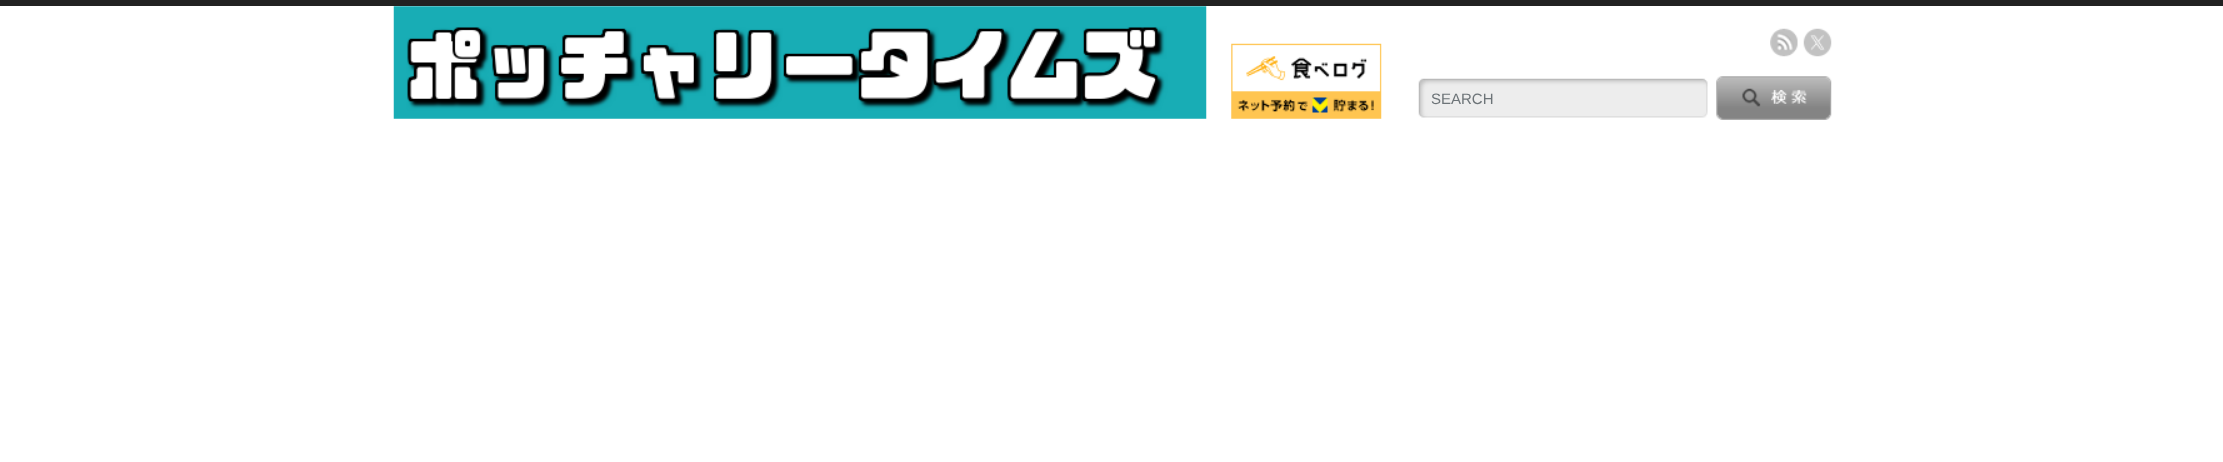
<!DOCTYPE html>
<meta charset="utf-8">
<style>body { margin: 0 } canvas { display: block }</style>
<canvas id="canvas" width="2223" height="462"></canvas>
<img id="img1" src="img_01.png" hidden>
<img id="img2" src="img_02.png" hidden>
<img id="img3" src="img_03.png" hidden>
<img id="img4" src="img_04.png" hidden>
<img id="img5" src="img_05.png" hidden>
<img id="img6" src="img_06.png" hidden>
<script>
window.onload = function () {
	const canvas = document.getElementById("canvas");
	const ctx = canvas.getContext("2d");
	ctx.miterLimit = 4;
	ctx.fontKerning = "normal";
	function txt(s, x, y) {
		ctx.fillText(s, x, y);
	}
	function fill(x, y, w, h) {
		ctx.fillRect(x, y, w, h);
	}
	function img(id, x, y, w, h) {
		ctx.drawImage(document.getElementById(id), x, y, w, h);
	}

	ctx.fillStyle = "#FFFFFF";
	fill(0, 0, 2223, 462);
	ctx.fillStyle = "#222222";
	fill(0, 0, 2223, 6);
	img("img1", 393, 6, 814, 113);
	img("img2", 1231, 43, 151, 76);
	img("img3", 1418, 78, 290, 40);
	img("img4", 1716, 76, 116, 44);
	img("img5", 1770, 28, 28, 29);
	img("img6", 1803, 28, 29, 29);
	ctx.font = "15px Liberation Sans";
	ctx.fillStyle = "#6D7478";
	txt("SEARCH", 1431, 104);
};
</script>
